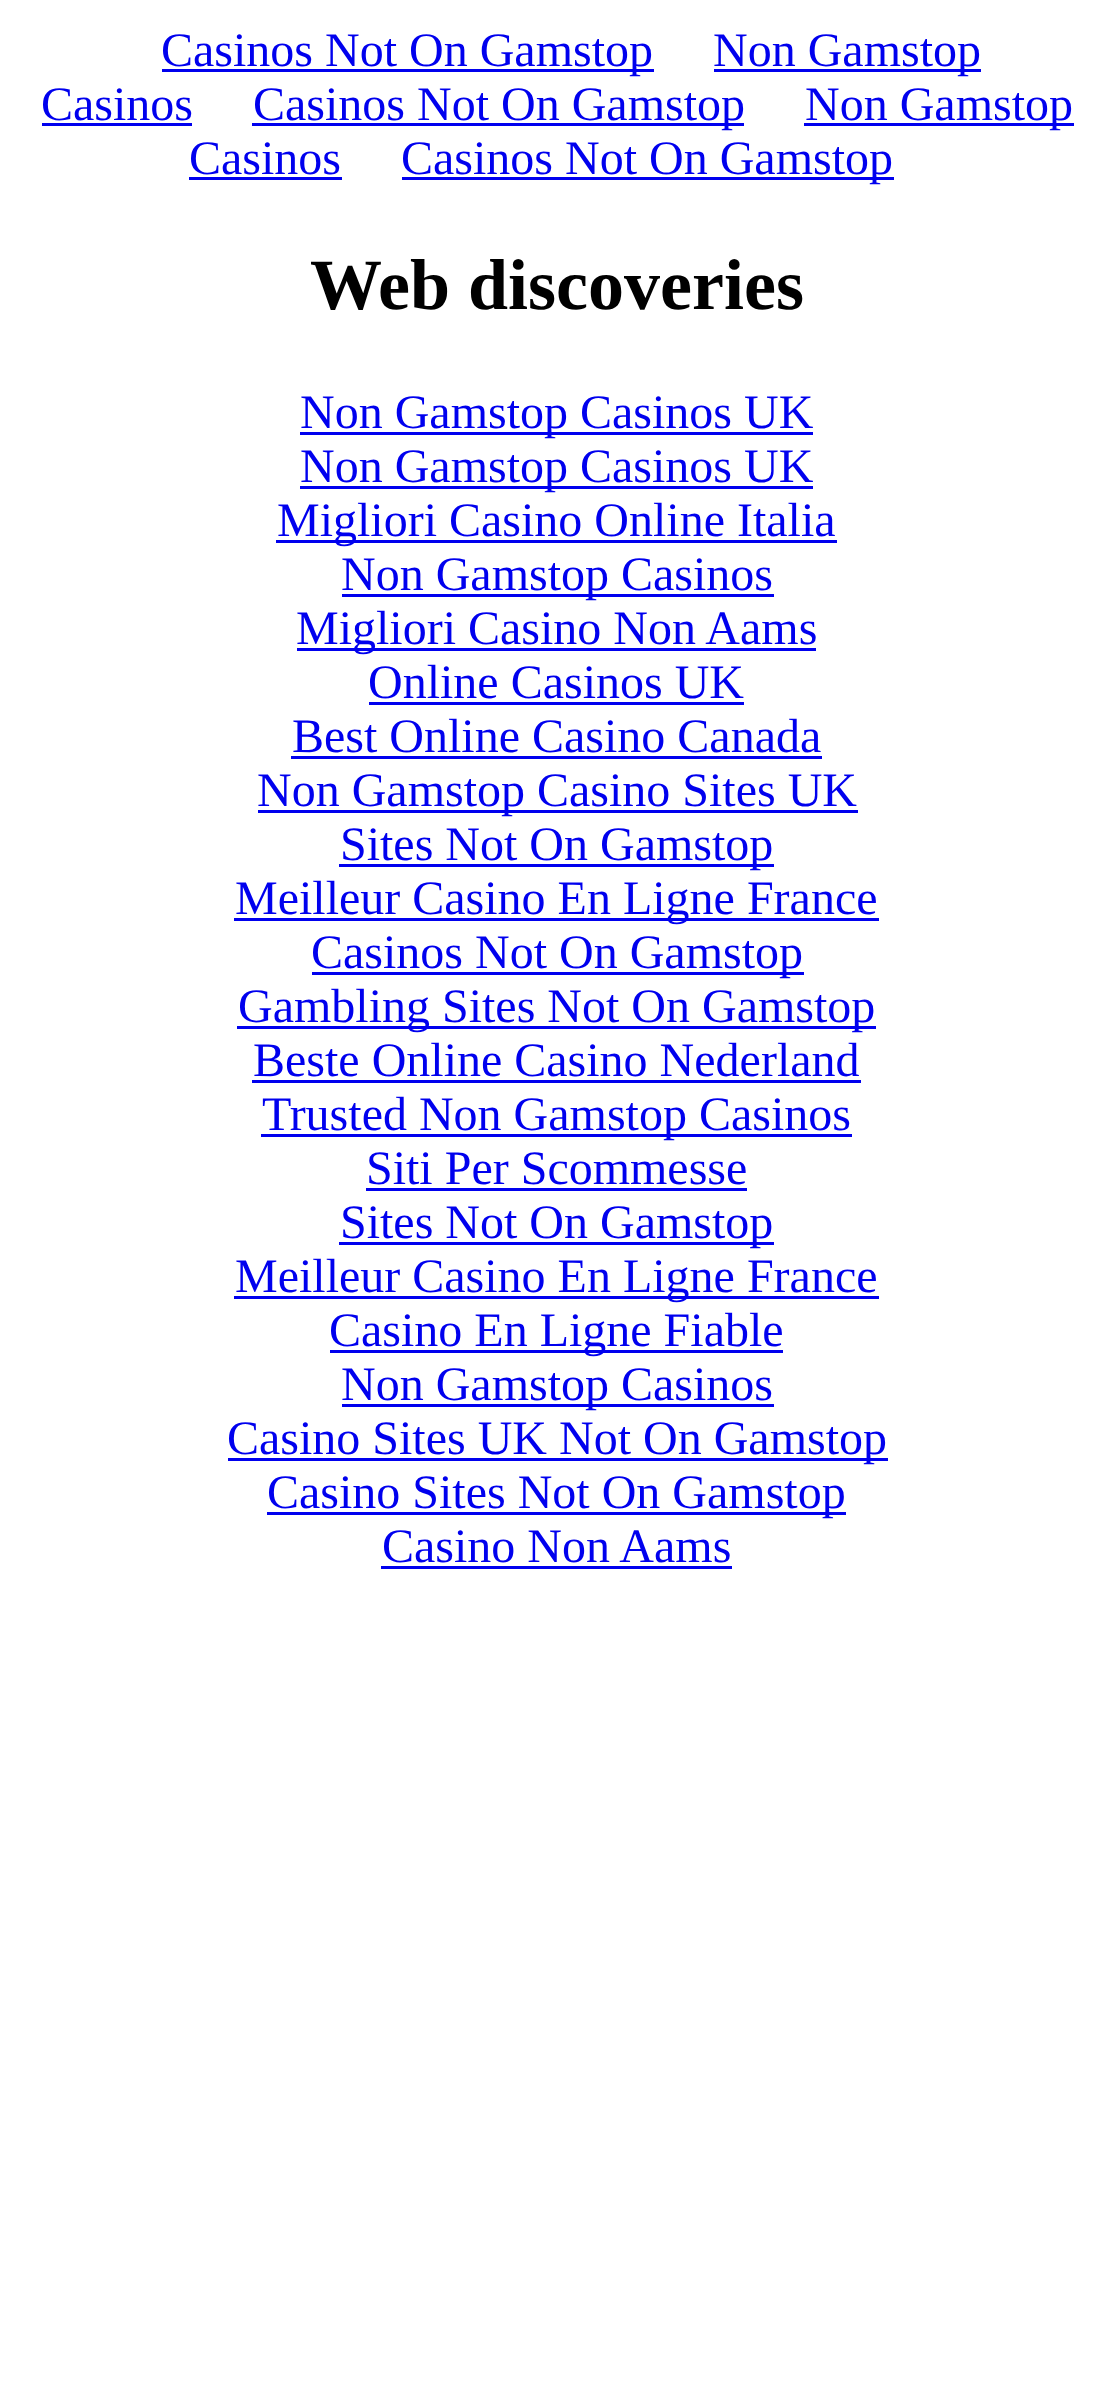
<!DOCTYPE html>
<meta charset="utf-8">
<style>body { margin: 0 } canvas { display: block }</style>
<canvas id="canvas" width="1113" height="2404"></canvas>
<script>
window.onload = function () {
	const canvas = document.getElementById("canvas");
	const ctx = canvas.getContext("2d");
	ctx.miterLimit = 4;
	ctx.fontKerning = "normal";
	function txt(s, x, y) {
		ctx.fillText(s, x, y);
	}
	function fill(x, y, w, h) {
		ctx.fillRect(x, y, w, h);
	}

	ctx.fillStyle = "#FFFFFF";
	fill(0, 0, 1113, 2404);
	ctx.fillStyle = "#0000EE";
	fill(162, 69, 492, 3);
	fill(714, 69, 267, 3);
	fill(42, 123, 150, 3);
	fill(252, 123, 492, 3);
	fill(804, 123, 270, 3);
	fill(189, 177, 153, 3);
	fill(402, 177, 492, 3);
	fill(300, 432, 513, 3);
	fill(300, 486, 513, 3);
	fill(276, 540, 561, 3);
	fill(342, 594, 432, 3);
	fill(297, 648, 519, 3);
	fill(369, 702, 375, 3);
	fill(291, 756, 531, 3);
	fill(258, 810, 600, 3);
	fill(339, 864, 435, 3);
	fill(234, 918, 645, 3);
	fill(312, 972, 492, 3);
	fill(237, 1026, 639, 3);
	fill(252, 1080, 609, 3);
	fill(261, 1134, 591, 3);
	fill(366, 1188, 381, 3);
	fill(339, 1242, 435, 3);
	fill(234, 1296, 645, 3);
	fill(330, 1350, 453, 3);
	fill(342, 1404, 432, 3);
	fill(228, 1458, 660, 3);
	fill(267, 1512, 579, 3);
	fill(381, 1566, 351, 3);
	ctx.font = "48px Liberation Serif";
	txt("Casinos Not On Gamstop", 161, 66);
	txt("Non Gamstop", 713, 66);
	txt("Casinos", 41, 120);
	txt("Casinos Not On Gamstop", 253, 120);
	txt("Non Gamstop", 805, 120);
	txt("Casinos", 189, 174);
	txt("Casinos Not On Gamstop", 401, 174);
	ctx.font = "bold 72px Liberation Serif";
	ctx.fillStyle = "#000000";
	txt("Web discoveries", 310, 309);
	ctx.font = "48px Liberation Serif";
	ctx.fillStyle = "#0000EE";
	txt("Non Gamstop Casinos UK", 300, 428);
	txt("Non Gamstop Casinos UK", 300, 482);
	txt("Migliori Casino Online Italia", 277, 536);
	txt("Non Gamstop Casinos", 341, 590);
	txt("Migliori Casino Non Aams", 296, 644);
	txt("Online Casinos UK", 368, 698);
	txt("Best Online Casino Canada", 292, 752);
	txt("Non Gamstop Casino Sites UK", 257, 806);
	txt("Sites Not On Gamstop", 340, 860);
	txt("Meilleur Casino En Ligne France", 235, 914);
	txt("Casinos Not On Gamstop", 311, 968);
	txt("Gambling Sites Not On Gamstop", 238, 1022);
	txt("Beste Online Casino Nederland", 253, 1076);
	txt("Trusted Non Gamstop Casinos", 262, 1130);
	txt("Siti Per Scommesse", 366, 1184);
	txt("Sites Not On Gamstop", 340, 1238);
	txt("Meilleur Casino En Ligne France", 235, 1292);
	txt("Casino En Ligne Fiable", 329, 1346);
	txt("Non Gamstop Casinos", 341, 1400);
	txt("Casino Sites UK Not On Gamstop", 227, 1454);
	txt("Casino Sites Not On Gamstop", 267, 1508);
	txt("Casino Non Aams", 382, 1562);
};
</script>
